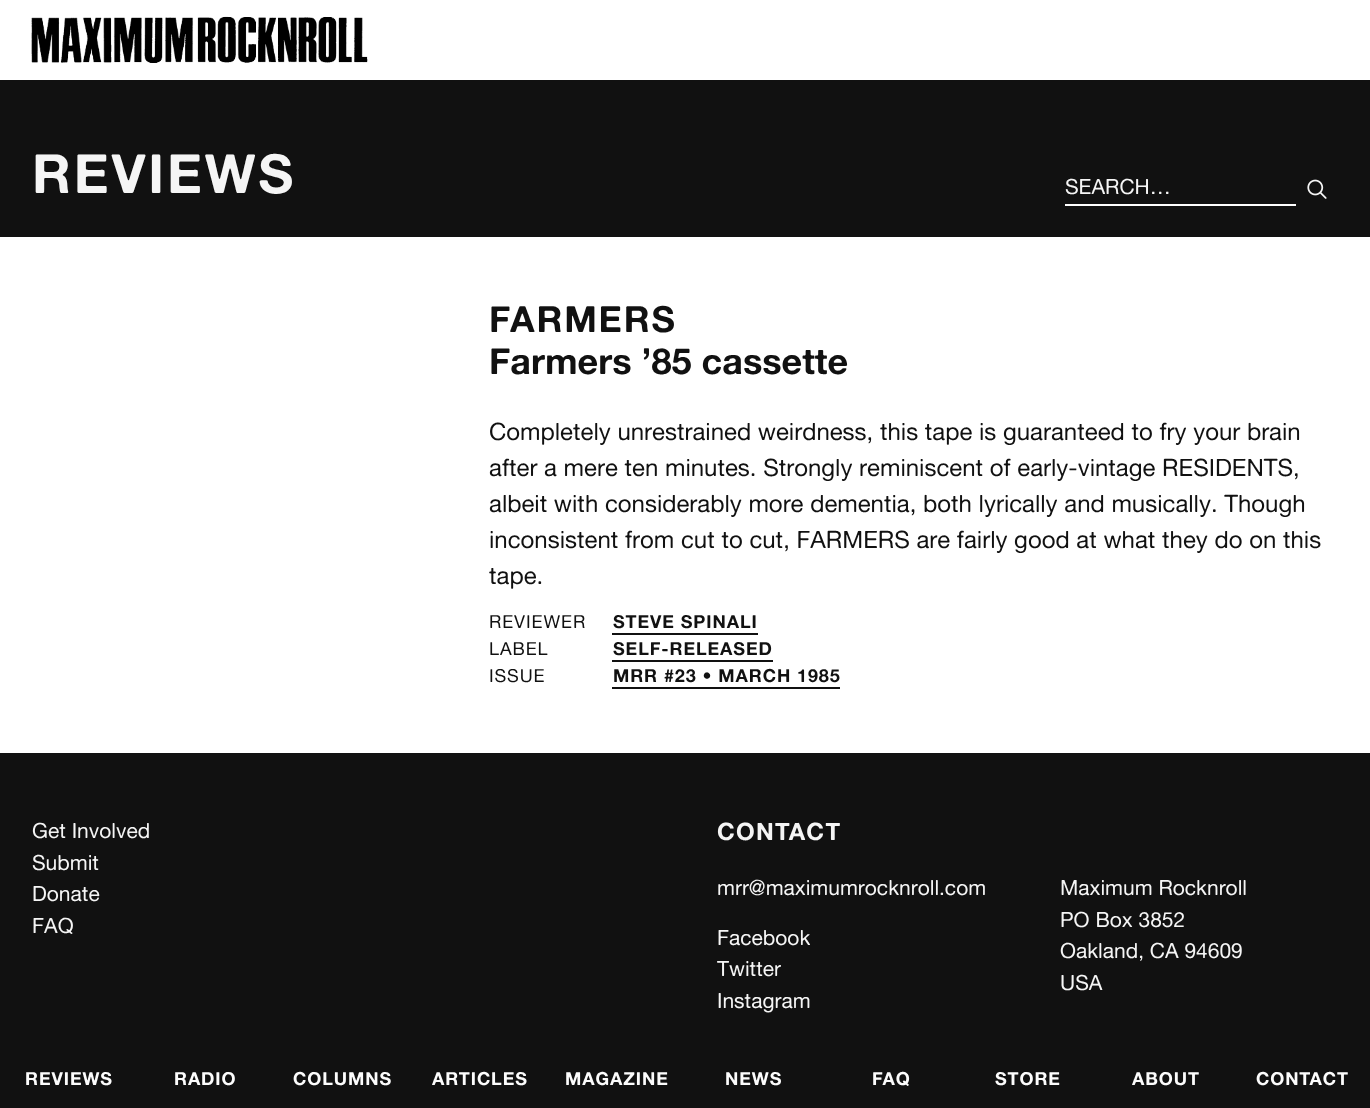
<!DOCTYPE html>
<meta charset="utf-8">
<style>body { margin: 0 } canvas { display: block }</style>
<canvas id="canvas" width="1370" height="1108"></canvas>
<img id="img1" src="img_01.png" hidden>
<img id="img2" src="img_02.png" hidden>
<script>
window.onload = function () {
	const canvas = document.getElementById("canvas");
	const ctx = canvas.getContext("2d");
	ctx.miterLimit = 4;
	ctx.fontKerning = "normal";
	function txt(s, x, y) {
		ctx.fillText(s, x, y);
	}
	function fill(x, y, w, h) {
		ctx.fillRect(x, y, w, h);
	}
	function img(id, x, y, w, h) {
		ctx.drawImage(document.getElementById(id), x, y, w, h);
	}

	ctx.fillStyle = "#FFFFFF";
	fill(0, 0, 1370, 1108);
	ctx.fillStyle = "#111111";
	fill(0, 80, 1370, 157);
	ctx.fillStyle = "#FFFFFF";
	fill(1065, 204, 231, 2);
	img("img1", 1307, 179, 20, 20);
	ctx.fillStyle = "#111111";
	fill(612, 633, 146, 2);
	fill(612, 660, 161, 2);
	fill(612, 687, 228, 2);
	fill(0, 753, 1370, 355);
	img("img2", 31, 16, 337, 47);
	ctx.letterSpacing = "2.75px";
	ctx.font = "bold 54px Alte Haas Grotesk";
	ctx.fillStyle = "#F5F5F5";
	txt("REVIEWS", 32, 193);
	ctx.letterSpacing = "0px";
	ctx.font = "21px Alte Haas Grotesk";
	txt("SEARCH…", 1065, 194);
	ctx.letterSpacing = "1.75px";
	ctx.font = "bold 36px Alte Haas Grotesk";
	ctx.fillStyle = "#111111";
	txt("FARMERS", 489, 332);
	ctx.letterSpacing = "0px";
	txt("Farmers ’85 cassette", 489, 374);
	ctx.font = "24px Alte Haas Grotesk";
	txt("Completely unrestrained weirdness, this tape is guaranteed to fry your brain", 489, 440);
	txt("after a mere ten minutes. Strongly reminiscent of early-vintage RESIDENTS,", 489, 476);
	txt("albeit with considerably more dementia, both lyrically and musically. Though", 489, 512);
	txt("inconsistent from cut to cut, FARMERS are fairly good at what they do on this", 489, 548);
	txt("tape.", 489, 584);
	ctx.letterSpacing = "0.9px";
	ctx.font = "18px Alte Haas Grotesk";
	txt("REVIEWER", 489, 628);
	ctx.font = "bold 18px Alte Haas Grotesk";
	txt("STEVE SPINALI", 613, 628);
	ctx.font = "18px Alte Haas Grotesk";
	txt("LABEL", 489, 655);
	ctx.font = "bold 18px Alte Haas Grotesk";
	txt("SELF-RELEASED", 613, 655);
	ctx.font = "18px Alte Haas Grotesk";
	txt("ISSUE", 489, 682);
	ctx.font = "bold 18px Alte Haas Grotesk";
	txt("MRR #23 • MARCH 1985", 613, 682);
	ctx.letterSpacing = "0px";
	ctx.font = "21px Alte Haas Grotesk";
	ctx.fillStyle = "#F5F5F5";
	txt("Get Involved", 32, 838);
	txt("Submit", 32, 870);
	txt("Donate", 32, 901);
	txt("FAQ", 32, 933);
	ctx.letterSpacing = "1.25px";
	ctx.font = "bold 24px Alte Haas Grotesk";
	txt("CONTACT", 717, 840);
	ctx.letterSpacing = "0px";
	ctx.font = "21px Alte Haas Grotesk";
	txt("mrr@maximumrocknroll.com", 717, 895);
	txt("Facebook", 717, 945);
	txt("Twitter", 717, 976);
	txt("Instagram", 717, 1008);
	txt("Maximum Rocknroll", 1060, 895);
	txt("PO Box 3852", 1060, 927);
	txt("Oakland, CA 94609", 1060, 958);
	txt("USA", 1060, 990);
	ctx.letterSpacing = "0.9px";
	ctx.font = "bold 18px Alte Haas Grotesk";
	ctx.fillStyle = "#FCFCFC";
	txt("REVIEWS", 25, 1085);
	txt("RADIO", 174, 1085);
	txt("COLUMNS", 293, 1085);
	txt("ARTICLES", 432, 1085);
	txt("MAGAZINE", 565, 1085);
	txt("NEWS", 725, 1085);
	txt("FAQ", 872, 1085);
	txt("STORE", 995, 1085);
	txt("ABOUT", 1132, 1085);
	txt("CONTACT", 1256, 1085);
};
</script>
